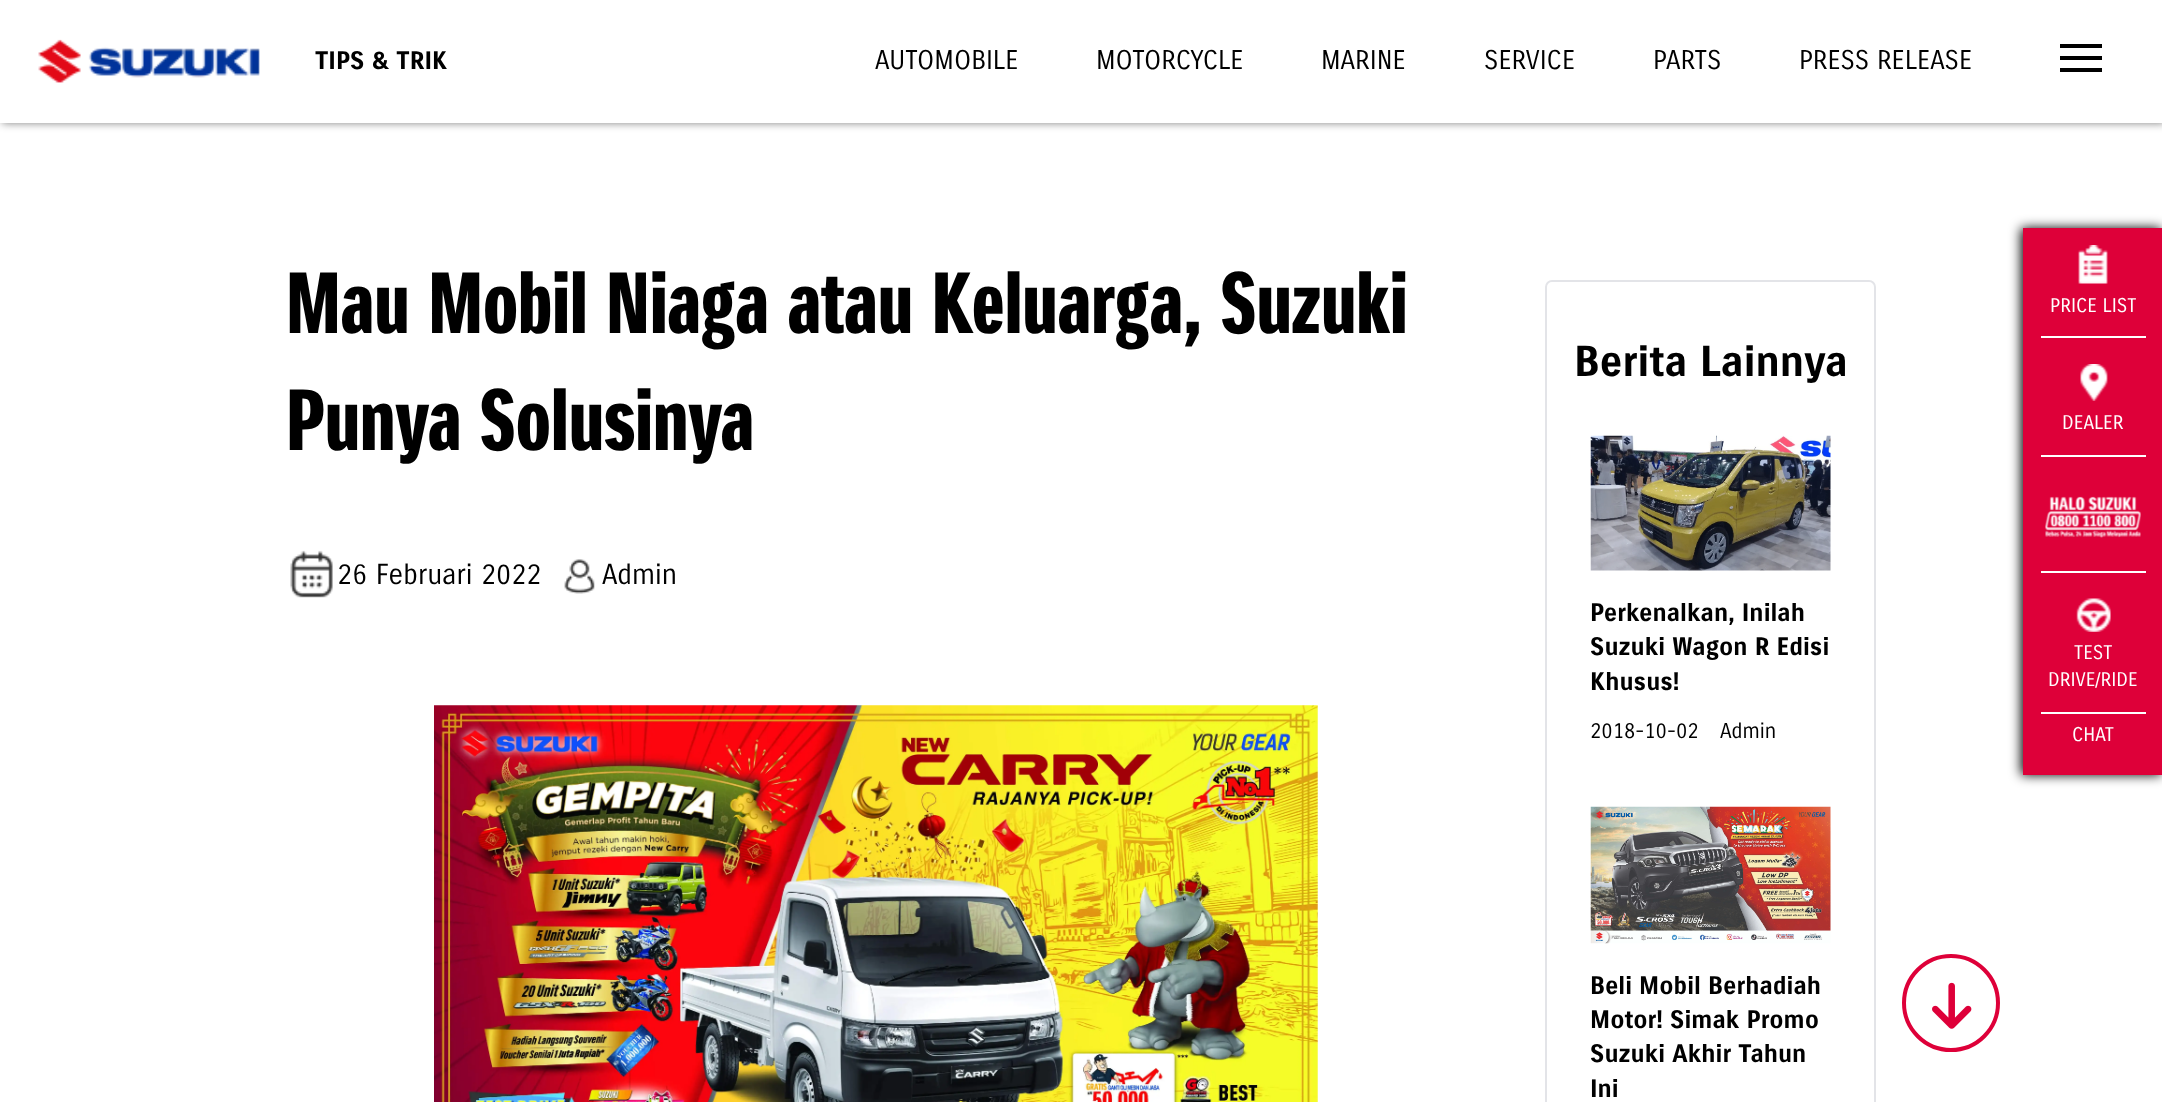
<!DOCTYPE html>
<meta charset="utf-8">
<style>body { margin: 0 } canvas { display: block }</style>
<canvas id="canvas" width="2162" height="1102"></canvas>
<img id="img1" src="img_01.png" hidden>
<img id="img2" src="img_02.png" hidden>
<img id="img3" src="img_03.png" hidden>
<img id="img4" src="img_04.png" hidden>
<img id="img5" src="img_05.png" hidden>
<img id="img6" src="img_06.png" hidden>
<img id="img7" src="img_07.png" hidden>
<img id="img8" src="img_08.png" hidden>
<img id="img9" src="img_09.png" hidden>
<img id="img10" src="img_10.png" hidden>
<img id="img11" src="img_11.png" hidden>
<script>
window.onload = function () {
	const canvas = document.getElementById("canvas");
	const ctx = canvas.getContext("2d");
	ctx.miterLimit = 4;
	ctx.fontKerning = "normal";
	function txt(s, x, y) {
		ctx.fillText(s, x, y);
	}
	function fill(x, y, w, h) {
		ctx.fillRect(x, y, w, h);
	}
	function img(id, x, y, w, h) {
		ctx.drawImage(document.getElementById(id), x, y, w, h);
	}

	ctx.fillStyle = "#FFFFFF";
	fill(0, 0, 2162, 1102);
	ctx.fillStyle = "rgba(0, 0, 0, 0.5)";
	ctx.filter = "blur(4.5px)";
	ctx.beginPath();
	ctx.rect(2, 0, 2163, 123);
	ctx.fill();
	ctx.filter = "none";
	ctx.fillStyle = "#FFFFFF";
	fill(0, 0, 2162, 123);
	img("img1", 38, 39, 222, 44);
	ctx.fillStyle = "#000000";
	fill(2060, 44, 42, 4);
	fill(2060, 56, 42, 4);
	fill(2060, 68, 42, 4);
	img("img2", 290, 550, 43, 48);
	img("img3", 564, 559, 31, 35);
	img("img4", 434, 705, 884, 397);
	ctx.beginPath();
	ctx.roundRect(1546, 281, 329, 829, 6);
	ctx.strokeStyle = "#E3E4E8";
	ctx.lineWidth = 2;
	ctx.stroke();
	img("img5", 1590, 435, 241, 136);
	img("img6", 1590, 806, 241, 138);
	ctx.beginPath();
	ctx.arc(1951, 1003, 47, 0, Math.PI * 2);
	ctx.strokeStyle = "#DE0039";
	ctx.lineWidth = 4;
	ctx.stroke();
	img("img7", 1932, 982, 40, 47);
	ctx.filter = "blur(6px)";
	ctx.beginPath();
	ctx.rect(2021, 228, 140, 547);
	ctx.fill();
	ctx.filter = "none";
	ctx.fillStyle = "#DE0039";
	fill(2023, 228, 139, 547);
	img("img8", 2078, 245, 30, 39);
	ctx.fillStyle = "#FFFFFF";
	fill(2041, 336, 105, 2);
	img("img9", 2080, 364, 28, 37);
	fill(2041, 455, 105, 2);
	img("img10", 2045, 496, 96, 42);
	fill(2041, 571, 105, 2);
	img("img11", 2076, 598, 35, 34);
	fill(2041, 712, 105, 2);
	ctx.font = "bold 24.5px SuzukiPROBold";
	ctx.fillStyle = "#000000";
	txt("TIPS & TRIK", 315, 69);
	ctx.font = "26.25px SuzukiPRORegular";
	txt("AUTOMOBILE", 875, 69);
	txt("MOTORCYCLE", 1096, 69);
	txt("MARINE", 1321, 69);
	txt("SERVICE", 1484, 69);
	txt("PARTS", 1653, 69);
	txt("PRESS RELEASE", 1799, 69);
	ctx.font = "bold 84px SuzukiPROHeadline";
	txt("Mau Mobil Niaga atau Keluarga, Suzuki", 286, 333);
	txt("Punya Solusinya", 286, 450);
	ctx.font = "28px SuzukiPRORegular";
	txt("26 Februari 2022", 337, 584);
	txt("Admin", 602, 584);
	ctx.font = "bold 42px SuzukiPROBold";
	txt("Berita Lainnya", 1574, 376);
	ctx.font = "bold 24.5px SuzukiPROBold";
	txt("Perkenalkan, Inilah", 1590, 621);
	txt("Suzuki Wagon R Edisi", 1590, 655);
	txt("Khusus!", 1590, 690);
	ctx.font = "21px SuzukiPRORegular";
	txt("2018-10-02", 1590, 738);
	txt("Admin", 1720, 738);
	ctx.font = "bold 24.5px SuzukiPROBold";
	txt("Beli Mobil Berhadiah", 1590, 994);
	txt("Motor! Simak Promo", 1590, 1028);
	txt("Suzuki Akhir Tahun", 1590, 1062);
	txt("Ini", 1590, 1097);
	ctx.font = "19.25px SuzukiPRORegular";
	ctx.fillStyle = "#FFFFFF";
	txt("PRICE LIST", 2050, 312);
	txt("DEALER", 2062, 429);
	txt("TEST", 2074, 659);
	txt("DRIVE/RIDE", 2048, 686);
	txt("CHAT", 2072, 741);
};
</script>
